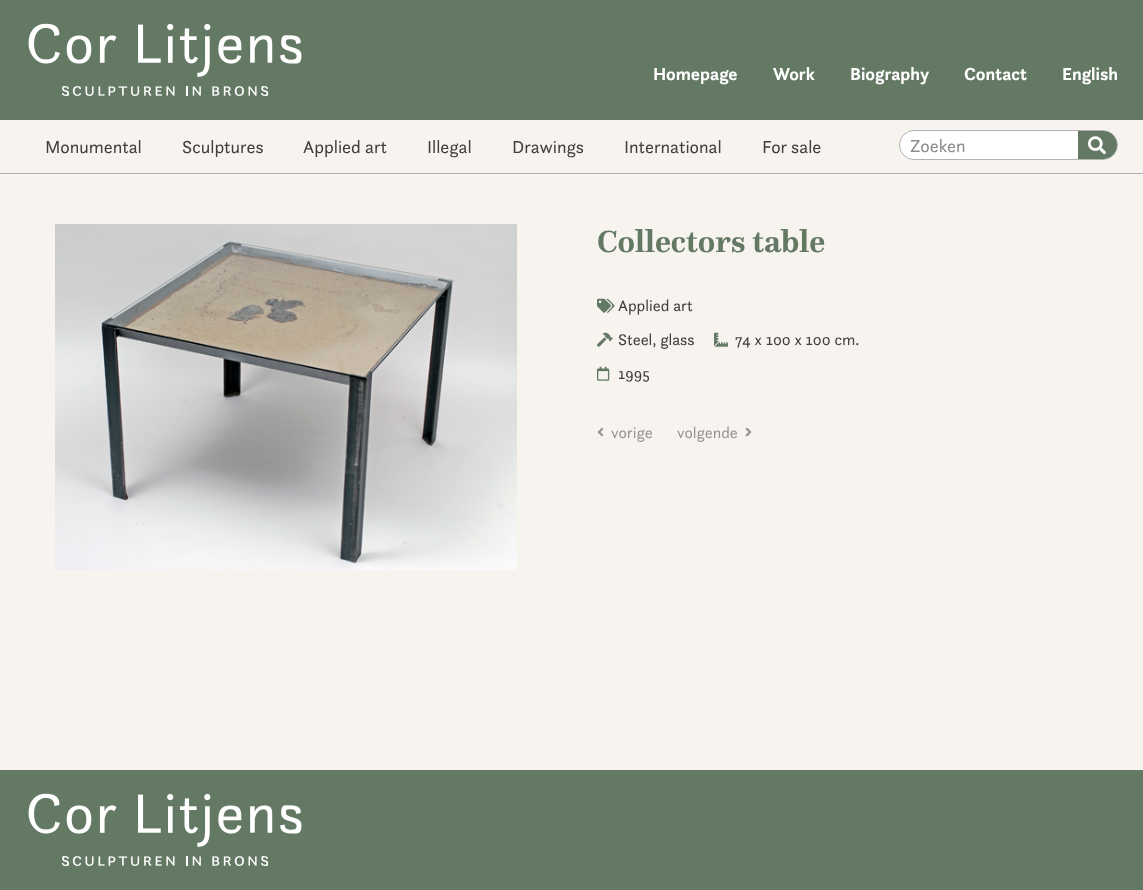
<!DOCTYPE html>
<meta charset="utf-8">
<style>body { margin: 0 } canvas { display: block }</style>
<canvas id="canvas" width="1143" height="890"></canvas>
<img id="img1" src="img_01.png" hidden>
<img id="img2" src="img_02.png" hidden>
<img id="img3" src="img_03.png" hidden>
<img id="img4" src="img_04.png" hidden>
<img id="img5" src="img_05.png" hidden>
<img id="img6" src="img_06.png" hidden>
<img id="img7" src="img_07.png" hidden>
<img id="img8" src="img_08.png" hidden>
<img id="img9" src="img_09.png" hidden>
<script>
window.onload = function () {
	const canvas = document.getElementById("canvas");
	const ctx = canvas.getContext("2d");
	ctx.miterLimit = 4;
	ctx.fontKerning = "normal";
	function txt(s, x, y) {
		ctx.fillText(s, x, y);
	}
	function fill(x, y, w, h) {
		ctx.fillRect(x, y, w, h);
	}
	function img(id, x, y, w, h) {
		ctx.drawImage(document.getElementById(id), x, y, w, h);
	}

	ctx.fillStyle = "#F7F3EE";
	fill(0, 0, 1143, 890);
	ctx.fillStyle = "#637964";
	fill(0, 0, 1143, 120);
	img("img1", 28, 23, 274, 73);
	ctx.fillStyle = "#B2B2B1";
	fill(0, 173, 1143, 1);
	ctx.fillStyle = "#FFFFFF";
	ctx.beginPath();
	ctx.roundRect(899.5, 130.5, 218, 29, 14.5);
	ctx.fill();
	ctx.strokeStyle = "#B2B2B1";
	ctx.stroke();
	ctx.fillStyle = "#637964";
	ctx.beginPath();
	ctx.roundRect(1078, 131, 39, 28, [0, 14, 14, 0]);
	ctx.fill();
	img("img2", 1088, 136, 18, 19);
	img("img3", 55, 224, 462, 346);
	img("img4", 597, 298, 18, 15);
	img("img5", 597, 332, 16, 15);
	img("img6", 714, 332, 14, 15);
	img("img7", 597, 366, 13, 15);
	img("img8", 597, 427, 7, 10);
	img("img9", 745, 427, 7, 10);
	fill(0, 770, 1143, 120);
	img("img1", 28, 793, 274, 73);
	ctx.font = "bold 18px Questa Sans";
	ctx.fillStyle = "#FFFFFF";
	txt("Homepage", 653, 80);
	txt("Work", 773, 80);
	txt("Biography", 850, 80);
	txt("Contact", 964, 80);
	txt("English", 1062, 80);
	ctx.font = "18px Questa Sans";
	ctx.fillStyle = "#3F3F3F";
	txt("Monumental", 45, 153);
	txt("Sculptures", 182, 153);
	txt("Applied art", 303, 153);
	txt("Illegal", 427, 153);
	txt("Drawings", 512, 153);
	txt("International", 624, 153);
	txt("For sale", 762, 153);
	ctx.fillStyle = "#8C8C8C";
	txt("Zoeken", 910, 152);
	ctx.font = "bold 32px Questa";
	ctx.fillStyle = "#637964";
	txt("Collectors table", 597, 252);
	ctx.font = "16px Questa Sans";
	ctx.fillStyle = "#3F3F3F";
	txt("Applied art", 618, 311);
	txt("Steel, glass", 618, 345);
	txt("74 x 100 x 100 cm.", 735, 345);
	txt("1995", 618, 379);
	ctx.fillStyle = "#979593";
	txt("vorige", 611, 438);
	txt("volgende", 677, 438);
};
</script>
